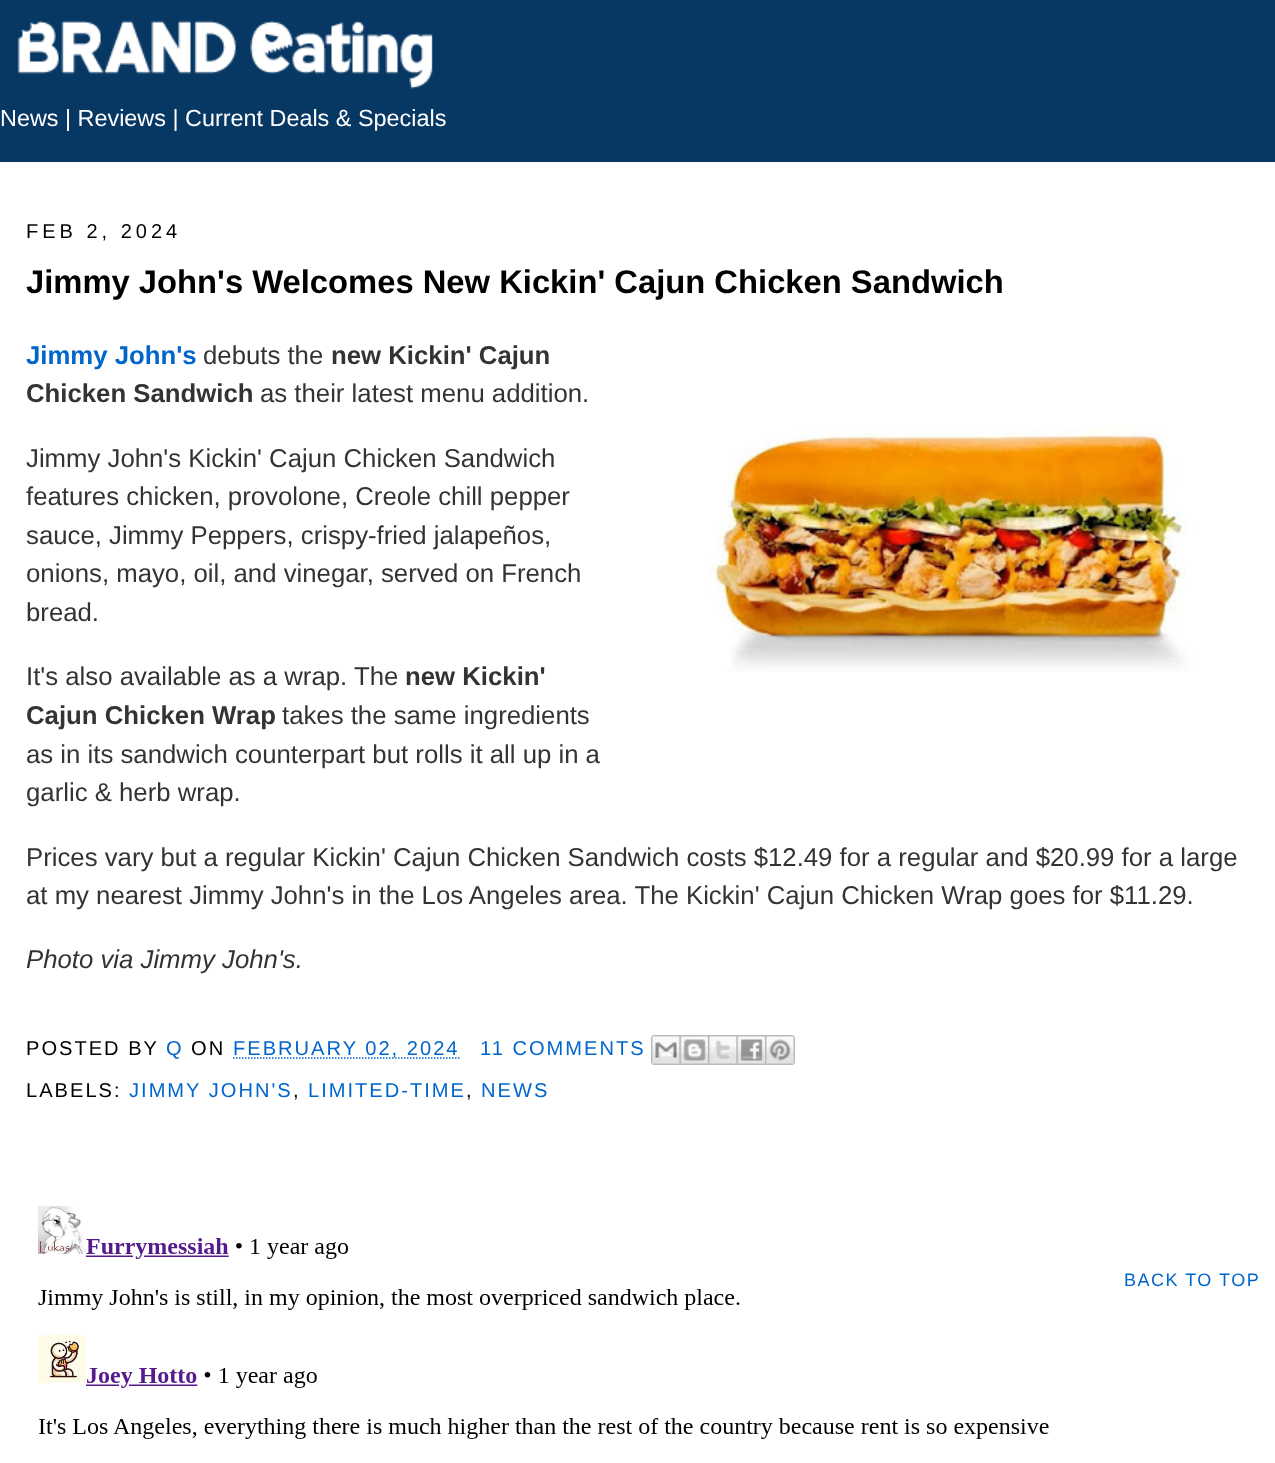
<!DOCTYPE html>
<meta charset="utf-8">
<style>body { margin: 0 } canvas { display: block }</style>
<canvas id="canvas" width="1275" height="1463"></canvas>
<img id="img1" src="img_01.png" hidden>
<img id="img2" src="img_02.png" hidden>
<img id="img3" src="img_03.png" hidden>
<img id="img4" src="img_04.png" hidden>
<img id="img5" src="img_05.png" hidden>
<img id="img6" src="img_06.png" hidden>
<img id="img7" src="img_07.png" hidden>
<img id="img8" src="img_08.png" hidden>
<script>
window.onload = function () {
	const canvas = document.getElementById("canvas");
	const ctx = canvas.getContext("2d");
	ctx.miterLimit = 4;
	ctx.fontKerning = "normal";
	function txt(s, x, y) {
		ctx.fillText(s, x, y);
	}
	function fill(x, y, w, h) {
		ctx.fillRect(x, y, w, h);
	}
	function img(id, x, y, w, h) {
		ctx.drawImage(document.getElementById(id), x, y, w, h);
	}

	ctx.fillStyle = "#FFFFFF";
	fill(0, 0, 1275, 1463);
	ctx.fillStyle = "#073763";
	fill(0, 0, 1275, 162);
	img("img1", 17, 20, 416, 69);
	img("img2", 709, 427, 484, 245);
	ctx.beginPath();
	ctx.moveTo(233, 1058);
	ctx.lineTo(460, 1058);
	ctx.strokeStyle = "#0066CC";
	ctx.lineWidth = 1.5;
	ctx.setLineDash([1.5, 1.5]);
	ctx.stroke();
	img("img3", 651, 1035, 29, 30);
	img("img4", 679, 1035, 29, 30);
	img("img5", 708, 1035, 29, 30);
	img("img6", 736, 1035, 29, 30);
	img("img7", 765, 1035, 30, 30);
	img("img8", 38, 1206, 1011, 233);
	ctx.font = "23.4px Liberation Sans";
	ctx.fillStyle = "#FFFFFF";
	txt("News | Reviews | Current Deals & Specials", 0, 126);
	ctx.letterSpacing = "4px";
	ctx.font = "20px Liberation Sans";
	ctx.fillStyle = "#000000";
	txt("FEB 2, 2024", 26, 238);
	ctx.letterSpacing = "0px";
	ctx.font = "bold 32.75px Liberation Sans";
	txt("Jimmy John's Welcomes New Kickin' Cajun Chicken Sandwich", 26, 293);
	ctx.font = "bold 25.75px Liberation Sans";
	ctx.fillStyle = "#0066CC";
	txt("Jimmy John's", 26, 364);
	ctx.font = "25.75px Liberation Sans";
	ctx.fillStyle = "#333333";
	txt("debuts the", 203, 364);
	ctx.font = "bold 25.75px Liberation Sans";
	txt("new Kickin' Cajun", 331, 364);
	txt("Chicken Sandwich", 26, 402);
	ctx.font = "25.75px Liberation Sans";
	txt("as their latest menu addition.", 260, 402);
	txt("Jimmy John's Kickin' Cajun Chicken Sandwich", 26, 467);
	txt("features chicken, provolone, Creole chill pepper", 26, 505);
	txt("sauce, Jimmy Peppers, crispy-fried jalapeños,", 26, 544);
	txt("onions, mayo, oil, and vinegar, served on French", 26, 582);
	txt("bread.", 26, 621);
	txt("It's also available as a wrap. The", 26, 685);
	ctx.font = "bold 25.75px Liberation Sans";
	txt("new Kickin'", 405, 685);
	txt("Cajun Chicken Wrap", 26, 724);
	ctx.font = "25.75px Liberation Sans";
	txt("takes the same ingredients", 282, 724);
	txt("as in its sandwich counterpart but rolls it all up in a", 26, 763);
	txt("garlic & herb wrap.", 26, 801);
	txt("Prices vary but a regular Kickin' Cajun Chicken Sandwich costs $12.49 for a regular and $20.99 for a large", 26, 866);
	txt("at my nearest Jimmy John's in the Los Angeles area. The Kickin' Cajun Chicken Wrap goes for $11.29.", 26, 904);
	ctx.font = "italic 25.75px Liberation Sans";
	txt("Photo via Jimmy John's.", 26, 968);
	ctx.letterSpacing = "2px";
	ctx.font = "20.1px Liberation Sans";
	ctx.fillStyle = "#000000";
	txt("POSTED BY", 26, 1055);
	ctx.fillStyle = "#0066CC";
	txt("Q", 166, 1055);
	ctx.fillStyle = "#000000";
	txt("ON", 191, 1055);
	ctx.fillStyle = "#0066CC";
	txt("FEBRUARY 02, 2024", 233, 1055);
	txt("11 COMMENTS", 480, 1055);
	ctx.fillStyle = "#000000";
	txt("LABELS:", 26, 1097);
	ctx.fillStyle = "#0066CC";
	txt("JIMMY JOHN'S", 129, 1097);
	ctx.fillStyle = "#000000";
	txt(",", 293, 1097);
	ctx.fillStyle = "#0066CC";
	txt("LIMITED-TIME", 308, 1097);
	ctx.fillStyle = "#000000";
	txt(",", 466, 1097);
	ctx.fillStyle = "#0066CC";
	txt("NEWS", 481, 1097);
	ctx.letterSpacing = "1.5px";
	ctx.font = "18px Liberation Sans";
	txt("BACK TO TOP", 1124, 1286);
};
</script>
